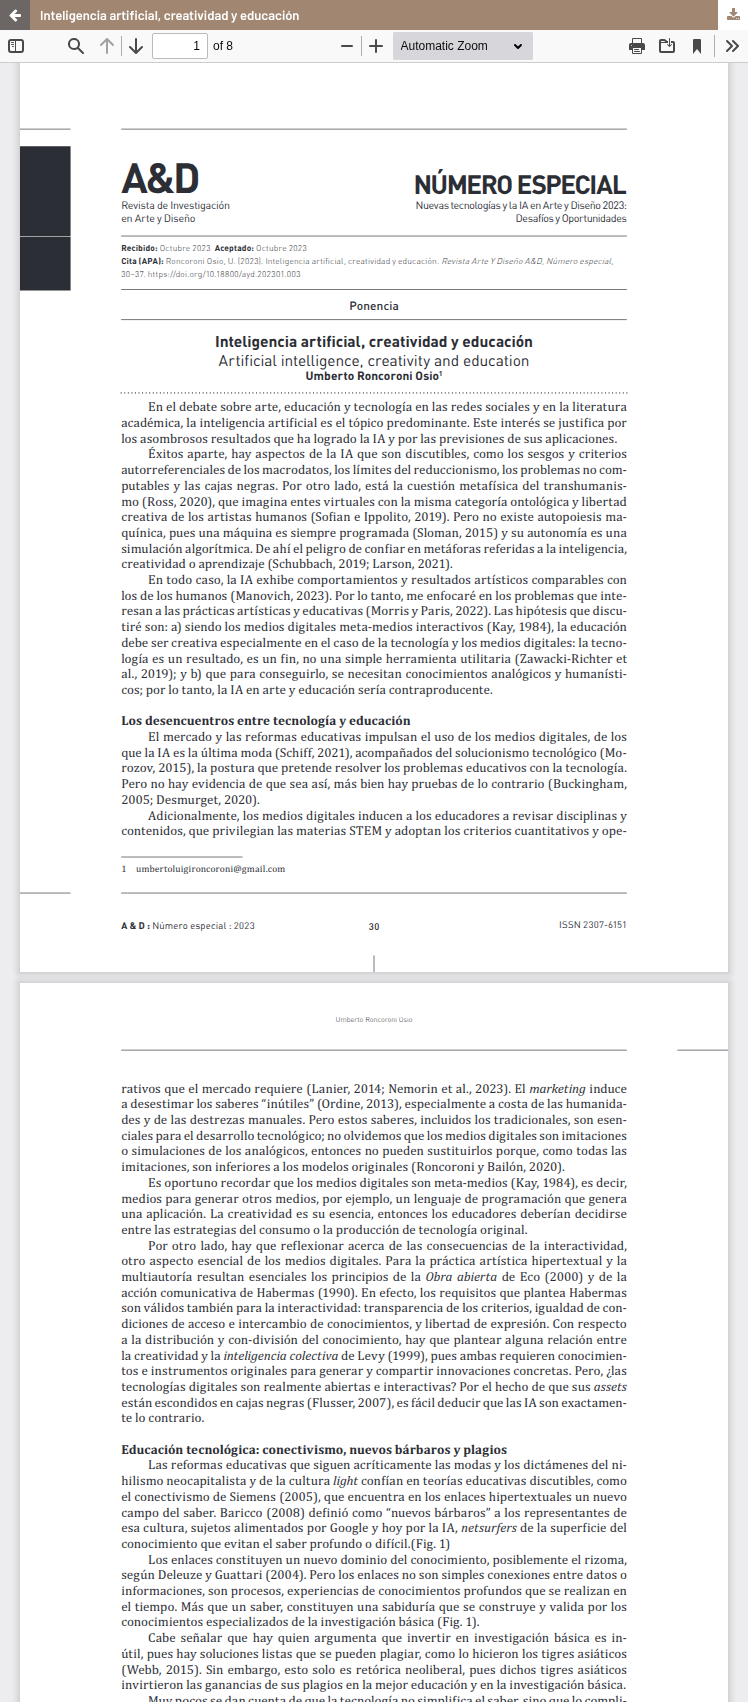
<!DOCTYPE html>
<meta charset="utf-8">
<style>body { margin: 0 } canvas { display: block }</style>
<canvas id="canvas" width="748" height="1702"></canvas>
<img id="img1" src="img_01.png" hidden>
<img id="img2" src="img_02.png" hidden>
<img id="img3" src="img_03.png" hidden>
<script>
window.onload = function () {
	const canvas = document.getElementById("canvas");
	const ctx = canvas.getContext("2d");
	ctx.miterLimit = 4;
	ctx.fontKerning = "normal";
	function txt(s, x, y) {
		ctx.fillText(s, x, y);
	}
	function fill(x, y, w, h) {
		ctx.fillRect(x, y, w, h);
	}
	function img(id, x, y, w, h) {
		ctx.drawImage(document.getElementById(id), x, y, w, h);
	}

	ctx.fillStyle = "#A18671";
	fill(0, 0, 748, 1702);
	ctx.fillStyle = "#6C6664";
	fill(0, 0, 30, 30);
	img("img1", 9, 9, 12, 13);
	ctx.fillStyle = "#FFFFFF";
	fill(718, 0, 30, 30);
	img("img2", 727, 8, 13, 12);
	img("img3", 0, 30, 748, 1672);
	ctx.font = "600 13px Barlow";
	txt("Inteligencia artificial, creatividad y educación", 40, 20);
};
</script>
